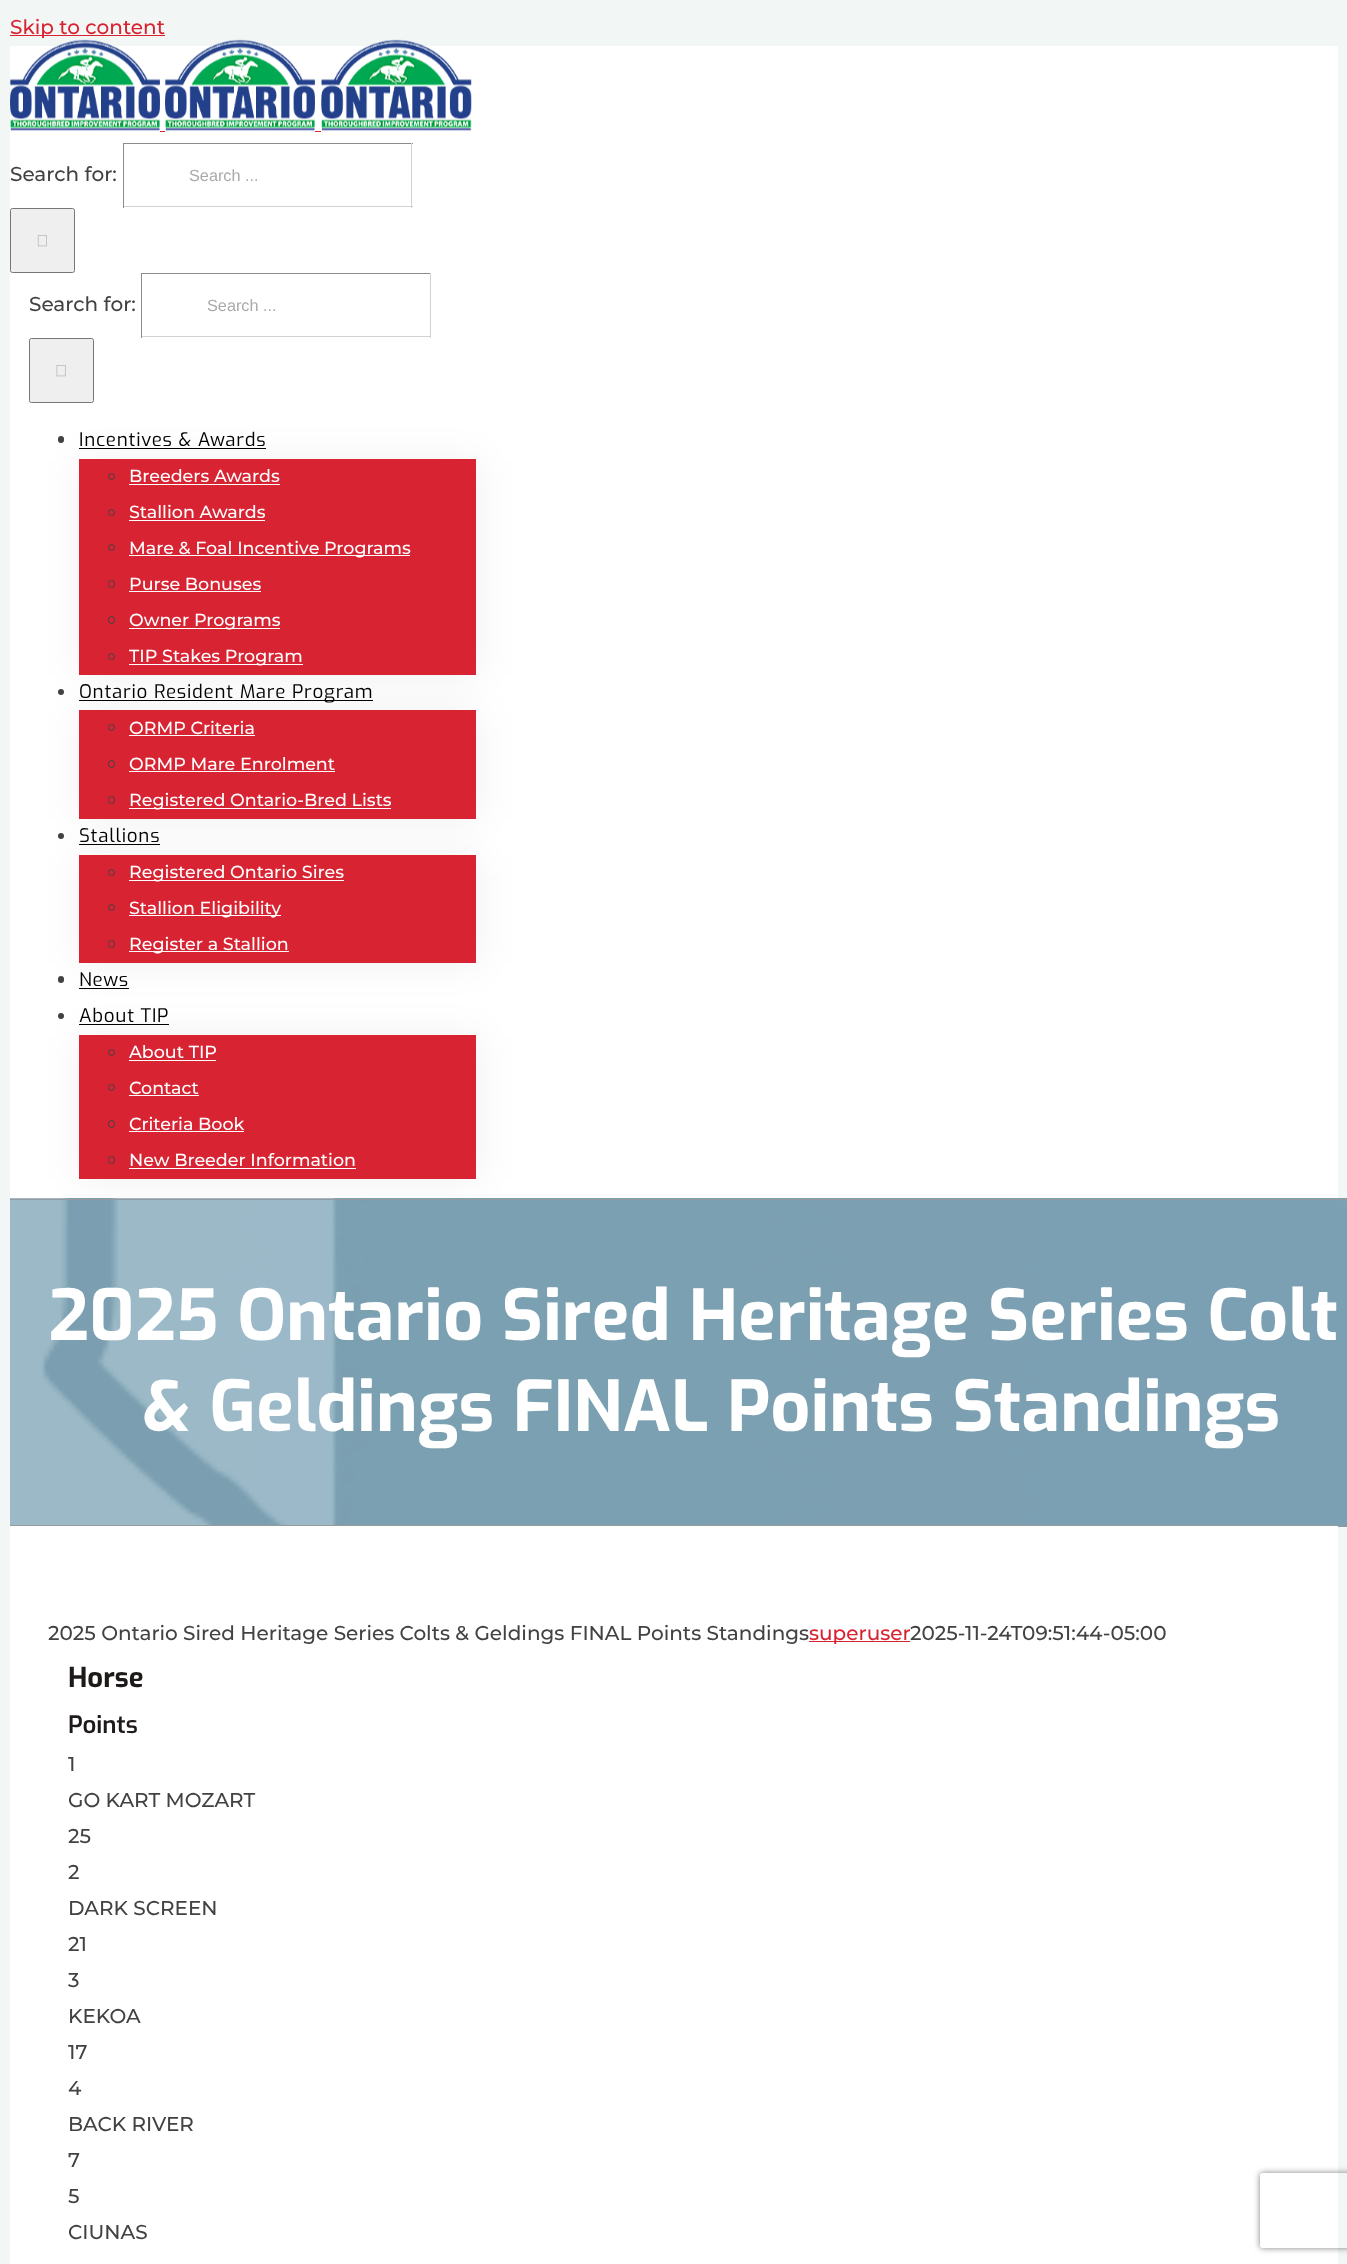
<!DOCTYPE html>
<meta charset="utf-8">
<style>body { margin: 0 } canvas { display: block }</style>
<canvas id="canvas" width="1347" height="2264"></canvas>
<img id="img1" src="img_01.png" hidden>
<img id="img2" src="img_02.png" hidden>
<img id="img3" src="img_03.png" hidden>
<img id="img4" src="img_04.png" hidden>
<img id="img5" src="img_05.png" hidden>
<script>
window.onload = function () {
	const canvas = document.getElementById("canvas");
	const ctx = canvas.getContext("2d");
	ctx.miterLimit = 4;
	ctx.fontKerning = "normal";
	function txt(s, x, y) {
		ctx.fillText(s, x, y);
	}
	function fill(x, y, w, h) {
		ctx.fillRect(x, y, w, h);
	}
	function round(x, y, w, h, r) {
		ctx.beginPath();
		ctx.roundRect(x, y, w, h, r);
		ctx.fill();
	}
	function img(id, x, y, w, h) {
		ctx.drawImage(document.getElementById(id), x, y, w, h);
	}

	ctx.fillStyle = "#F2F6F5";
	fill(0, 0, 1347, 2264);
	ctx.fillStyle = "#D82432";
	fill(10, 35, 155, 1);
	ctx.fillStyle = "#FFFFFF";
	fill(10, 46, 1328, 1152);
	img("img1", 10, 39, 150, 92);
	img("img1", 165, 39, 150, 92);
	img("img2", 321, 39, 151, 92);
	ctx.fillStyle = "#D82432";
	fill(160, 131, 5, 1);
	fill(315, 131, 6, 1);
	ctx.fillStyle = "#8C8C8C";
	fill(123, 143, 290, 1);
	ctx.fillStyle = "#D2D2D2";
	fill(411, 143, 1, 65);
	fill(123, 206, 290, 1);
	ctx.fillStyle = "#8C8C8C";
	fill(123, 143, 1, 65);
	ctx.fillStyle = "#EFEFEF";
	ctx.beginPath();
	ctx.roundRect(10.5, 208.5, 64, 64, 2);
	ctx.fill();
	ctx.strokeStyle = "#767676";
	ctx.stroke();
	img("img3", 37, 235, 10, 12);
	ctx.fillStyle = "#8C8C8C";
	fill(141, 273, 290, 1);
	ctx.fillStyle = "#D2D2D2";
	fill(430, 273, 1, 65);
	fill(141, 336, 290, 1);
	ctx.fillStyle = "#8C8C8C";
	fill(141, 273, 1, 65);
	ctx.fillStyle = "rgba(0, 0, 0, 0.06)";
	ctx.filter = "blur(19px)";
	ctx.beginPath();
	ctx.rect(80, 460, 398, 216);
	ctx.fill();
	ctx.filter = "none";
	ctx.fillStyle = "#EFEFEF";
	ctx.beginPath();
	ctx.roundRect(29.5, 338.5, 64, 64, 2);
	ctx.fill();
	ctx.stroke();
	img("img4", 56, 365, 10, 12);
	ctx.fillStyle = "#424242";
	round(58, 436, 6, 7, 3);
	ctx.fillStyle = "#000000";
	fill(79, 448, 187, 1);
	ctx.fillStyle = "#D82432";
	fill(79, 459, 397, 216);
	ctx.beginPath();
	ctx.arc(111.5, 476.5, 3, 0, Math.PI * 2);
	ctx.strokeStyle = "#424242";
	ctx.stroke();
	ctx.fillStyle = "#FFFFFF";
	fill(129, 484, 151, 1);
	ctx.beginPath();
	ctx.arc(111.5, 512.5, 3, 0, Math.PI * 2);
	ctx.stroke();
	fill(129, 520, 136, 1);
	ctx.beginPath();
	ctx.arc(111.5, 547.5, 3, 0, Math.PI * 2);
	ctx.stroke();
	fill(129, 555, 281, 1);
	ctx.beginPath();
	ctx.roundRect(108.5, 580.5, 6, 7, 3);
	ctx.stroke();
	fill(129, 591, 132, 1);
	ctx.beginPath();
	ctx.roundRect(108.5, 616.5, 6, 7, 3);
	ctx.stroke();
	fill(129, 628, 151, 1);
	ctx.fillStyle = "rgba(0, 0, 0, 0.06)";
	ctx.filter = "blur(19px)";
	ctx.beginPath();
	ctx.rect(80, 711, 398, 109);
	ctx.fill();
	ctx.filter = "none";
	ctx.beginPath();
	ctx.arc(111.5, 656.5, 3, 0, Math.PI * 2);
	ctx.stroke();
	ctx.fillStyle = "#FFFFFF";
	fill(129, 664, 174, 1);
	ctx.fillStyle = "#424242";
	ctx.beginPath();
	ctx.arc(61, 692, 3, 0, Math.PI * 2);
	ctx.fill();
	ctx.fillStyle = "#000000";
	fill(79, 700, 294, 1);
	ctx.fillStyle = "#D82432";
	fill(79, 710, 397, 109);
	ctx.beginPath();
	ctx.arc(111.5, 727.5, 3, 0, Math.PI * 2);
	ctx.stroke();
	ctx.fillStyle = "#FFFFFF";
	fill(129, 735, 126, 1);
	ctx.beginPath();
	ctx.roundRect(108.5, 760.5, 6, 7, 3);
	ctx.stroke();
	fill(129, 771, 206, 1);
	ctx.fillStyle = "rgba(0, 0, 0, 0.06)";
	ctx.filter = "blur(19px)";
	ctx.beginPath();
	ctx.rect(80, 856, 398, 108);
	ctx.fill();
	ctx.filter = "none";
	ctx.beginPath();
	ctx.roundRect(108.5, 796.5, 6, 7, 3);
	ctx.stroke();
	ctx.fillStyle = "#FFFFFF";
	fill(129, 808, 262, 1);
	ctx.fillStyle = "#424242";
	ctx.beginPath();
	ctx.arc(61, 836, 3, 0, Math.PI * 2);
	ctx.fill();
	ctx.fillStyle = "#000000";
	fill(79, 844, 81, 1);
	ctx.fillStyle = "#D82432";
	fill(79, 855, 397, 108);
	ctx.beginPath();
	ctx.arc(111.5, 872.5, 3, 0, Math.PI * 2);
	ctx.stroke();
	ctx.fillStyle = "#FFFFFF";
	fill(129, 880, 215, 1);
	ctx.beginPath();
	ctx.arc(111.5, 907.5, 3, 0, Math.PI * 2);
	ctx.stroke();
	fill(129, 915, 152, 1);
	ctx.beginPath();
	ctx.roundRect(108.5, 940.5, 6, 7, 3);
	ctx.stroke();
	fill(129, 951, 160, 1);
	ctx.fillStyle = "rgba(0, 0, 0, 0.06)";
	ctx.filter = "blur(19px)";
	ctx.beginPath();
	ctx.rect(80, 1036, 398, 144);
	ctx.fill();
	ctx.filter = "none";
	ctx.fillStyle = "#424242";
	round(58, 976, 6, 7, 3);
	ctx.fillStyle = "#000000";
	fill(79, 988, 50, 1);
	ctx.fillStyle = "#424242";
	ctx.beginPath();
	ctx.arc(61, 1016, 3, 0, Math.PI * 2);
	ctx.fill();
	ctx.fillStyle = "#000000";
	fill(79, 1024, 90, 1);
	ctx.fillStyle = "#D82432";
	fill(79, 1035, 397, 144);
	ctx.beginPath();
	ctx.arc(111.5, 1052.5, 3, 0, Math.PI * 2);
	ctx.stroke();
	ctx.fillStyle = "#FFFFFF";
	fill(129, 1060, 87, 1);
	ctx.beginPath();
	ctx.arc(111.5, 1087.5, 3, 0, Math.PI * 2);
	ctx.stroke();
	fill(129, 1095, 70, 1);
	ctx.beginPath();
	ctx.roundRect(108.5, 1120.5, 6, 7, 3);
	ctx.stroke();
	fill(129, 1131, 115, 1);
	ctx.beginPath();
	ctx.roundRect(108.5, 1156.5, 6, 7, 3);
	ctx.stroke();
	fill(129, 1168, 227, 1);
	img("img5", 10, 1198, 1337, 329);
	ctx.fillStyle = "#999999";
	fill(10, 1199, 1337, 1);
	fill(10, 1525, 1337, 1);
	ctx.fillStyle = "#FFFFFF";
	fill(10, 1526, 1328, 738);
	ctx.fillStyle = "#D82432";
	fill(809, 1641, 101, 1);
	ctx.save();
	ctx.beginPath();
	ctx.moveTo(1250, 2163);
	ctx.lineTo(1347, 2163);
	ctx.lineTo(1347, 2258);
	ctx.lineTo(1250, 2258);
	ctx.closePath();
	ctx.moveTo(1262.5, 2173);
	ctx.lineTo(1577.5, 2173);
	ctx.bezierCurveTo(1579, 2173, 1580, 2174, 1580, 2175.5);
	ctx.lineTo(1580, 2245.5);
	ctx.bezierCurveTo(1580, 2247, 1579, 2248, 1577.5, 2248);
	ctx.lineTo(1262.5, 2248);
	ctx.bezierCurveTo(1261, 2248, 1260, 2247, 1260, 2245.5);
	ctx.lineTo(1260, 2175.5);
	ctx.bezierCurveTo(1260, 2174, 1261, 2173, 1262.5, 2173);
	ctx.closePath();
	ctx.clip("evenodd");
	ctx.fillStyle = "#808080";
	ctx.filter = "blur(3px)";
	ctx.beginPath();
	ctx.roundRect(1260, 2173, 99, 75, 2.5);
	ctx.fill();
	ctx.filter = "none";
	ctx.restore();
	ctx.font = "100 20px Montserrat";
	txt("Skip to content", 10, 34);
	ctx.fillStyle = "#424242";
	txt("Search for:", 10, 181);
	ctx.font = "16.25px Liberation Sans";
	ctx.fillStyle = "#AAA9A9";
	txt("Search ...", 189, 181);
	ctx.font = "100 20px Montserrat";
	ctx.fillStyle = "#424242";
	txt("Search for:", 29, 311);
	ctx.font = "16.25px Liberation Sans";
	ctx.fillStyle = "#AAA9A9";
	txt("Search ...", 207, 311);
	ctx.letterSpacing = "0.75px";
	ctx.font = "18.75px Exo";
	ctx.fillStyle = "#000000";
	txt("Incentives & Awards", 79, 446);
	ctx.letterSpacing = "0px";
	ctx.font = "100 17.5px Montserrat";
	ctx.fillStyle = "#FFFFFF";
	txt("Breeders Awards", 129, 482);
	txt("Stallion Awards", 129, 518);
	txt("Mare & Foal Incentive Programs", 129, 554);
	txt("Purse Bonuses", 129, 590);
	txt("Owner Programs", 129, 626);
	txt("TIP Stakes Program", 129, 662);
	ctx.letterSpacing = "0.75px";
	ctx.font = "18.75px Exo";
	ctx.fillStyle = "#000000";
	txt("Ontario Resident Mare Program", 79, 698);
	ctx.letterSpacing = "0px";
	ctx.font = "100 17.5px Montserrat";
	ctx.fillStyle = "#FFFFFF";
	txt("ORMP Criteria", 129, 734);
	txt("ORMP Mare Enrolment", 129, 770);
	txt("Registered Ontario-Bred Lists", 129, 806);
	ctx.letterSpacing = "0.75px";
	ctx.font = "18.75px Exo";
	ctx.fillStyle = "#000000";
	txt("Stallions", 79, 842);
	ctx.letterSpacing = "0px";
	ctx.font = "100 17.5px Montserrat";
	ctx.fillStyle = "#FFFFFF";
	txt("Registered Ontario Sires", 129, 878);
	txt("Stallion Eligibility", 129, 914);
	txt("Register a Stallion", 129, 950);
	ctx.letterSpacing = "0.75px";
	ctx.font = "18.75px Exo";
	ctx.fillStyle = "#000000";
	txt("News", 79, 986);
	txt("About TIP", 79, 1022);
	ctx.letterSpacing = "0px";
	ctx.font = "100 17.5px Montserrat";
	ctx.fillStyle = "#FFFFFF";
	txt("About TIP", 129, 1058);
	txt("Contact", 129, 1094);
	txt("Criteria Book", 129, 1130);
	txt("New Breeder Information", 129, 1166);
	ctx.letterSpacing = "0.25px";
	ctx.font = "bold 70px Exo";
	txt("2025 Ontario Sired Heritage Series Colt", 48, 1340);
	txt("& Geldings FINAL Points Standings", 142, 1431);
	ctx.letterSpacing = "0px";
	ctx.font = "100 20px Montserrat";
	ctx.fillStyle = "#424242";
	txt("2025 Ontario Sired Heritage Series Colts & Geldings FINAL Points Standings", 48, 1640);
	ctx.fillStyle = "#D82432";
	txt("superuser", 809, 1640);
	ctx.fillStyle = "#424242";
	txt("2025-11-24T09:51:44-05:00", 910, 1640);
	ctx.font = "bold 27.5px Exo";
	ctx.fillStyle = "#1F1A1A";
	txt("Horse", 68, 1687);
	ctx.font = "600 24px Exo";
	txt("Points", 68, 1733);
	ctx.font = "100 20px Montserrat";
	ctx.fillStyle = "#424242";
	txt("1", 68, 1771);
	txt("GO KART MOZART", 68, 1807);
	txt("25", 68, 1843);
	txt("2", 68, 1879);
	txt("DARK SCREEN", 68, 1915);
	txt("21", 68, 1951);
	txt("3", 68, 1987);
	txt("KEKOA", 68, 2023);
	txt("17", 68, 2059);
	txt("4", 68, 2095);
	txt("BACK RIVER", 68, 2131);
	txt("7", 68, 2167);
	txt("5", 68, 2203);
	txt("CIUNAS", 68, 2239);
};
</script>
